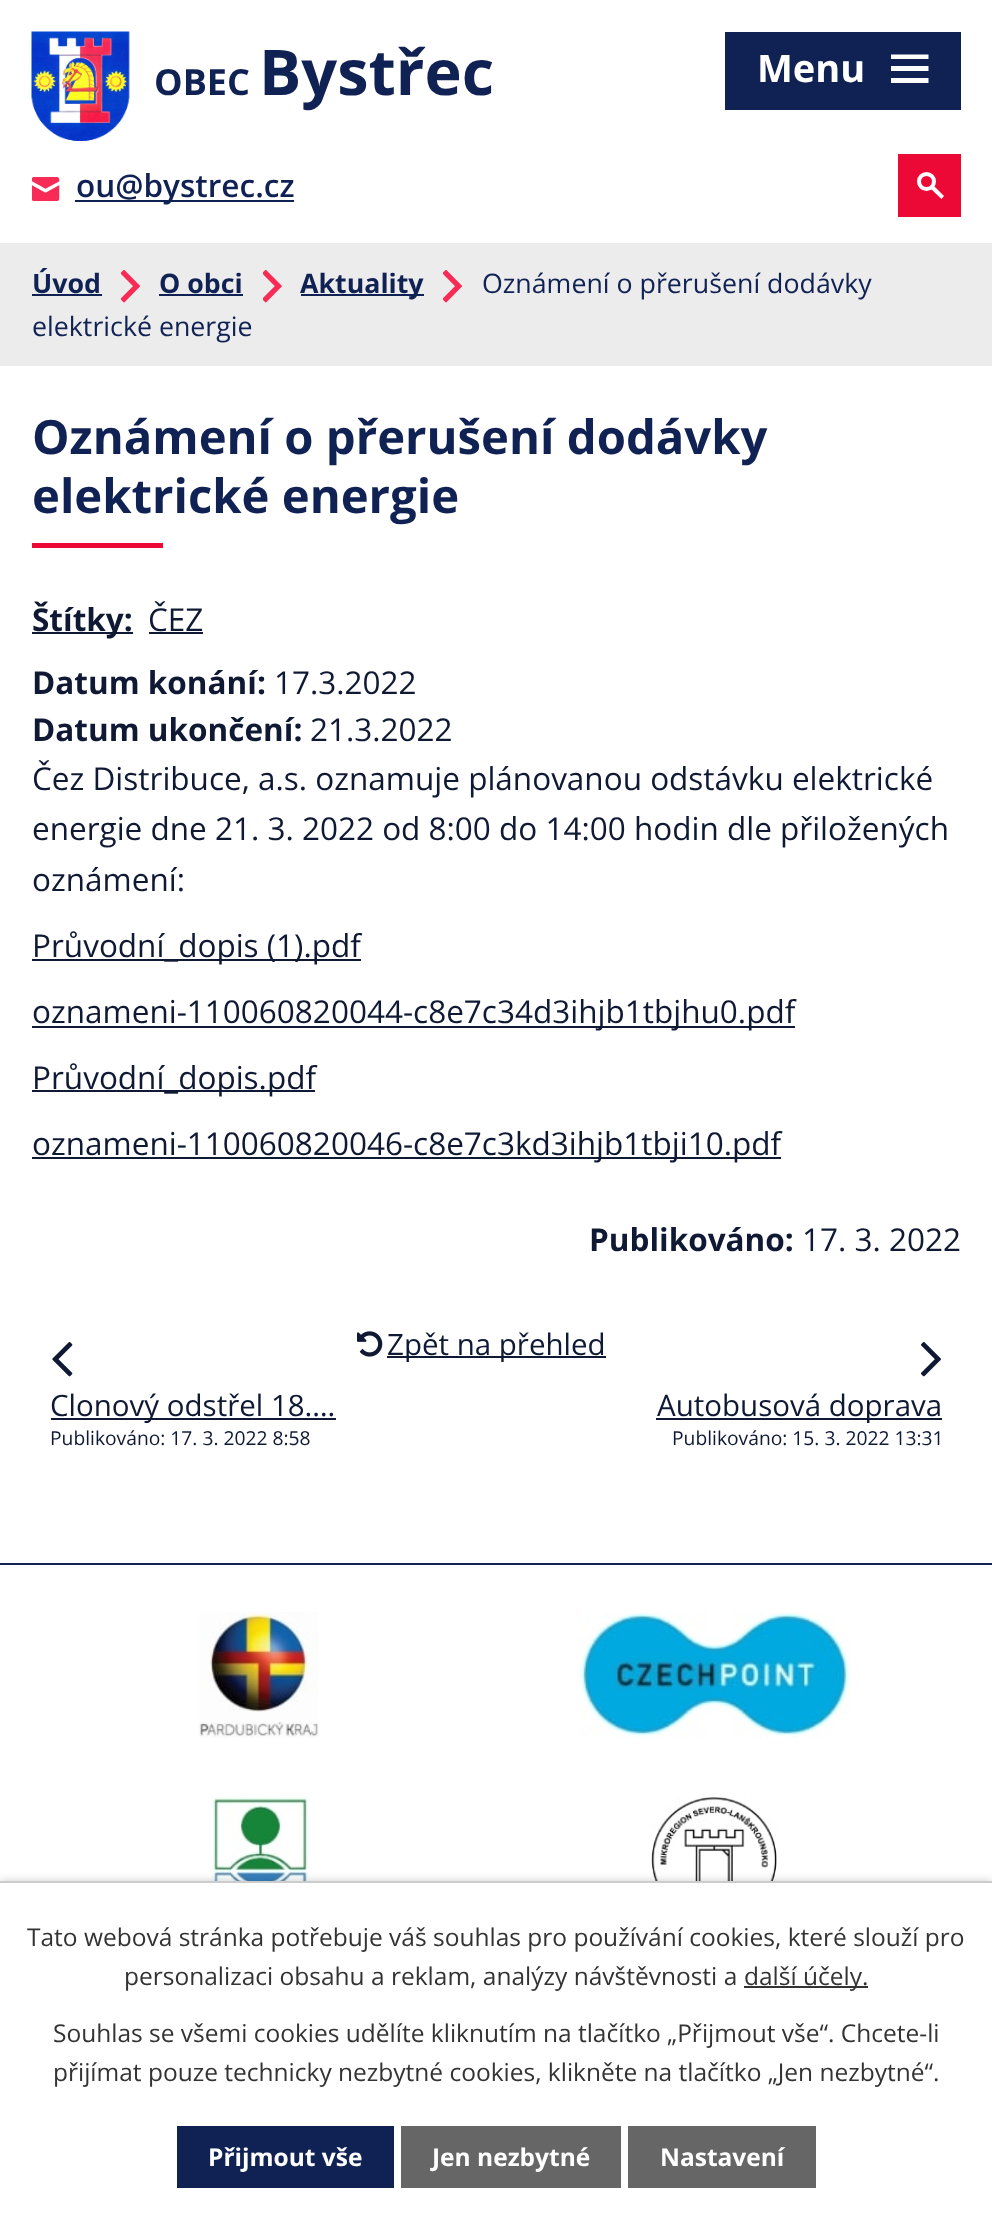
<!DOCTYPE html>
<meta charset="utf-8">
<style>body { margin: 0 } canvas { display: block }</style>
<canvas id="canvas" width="992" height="2220"></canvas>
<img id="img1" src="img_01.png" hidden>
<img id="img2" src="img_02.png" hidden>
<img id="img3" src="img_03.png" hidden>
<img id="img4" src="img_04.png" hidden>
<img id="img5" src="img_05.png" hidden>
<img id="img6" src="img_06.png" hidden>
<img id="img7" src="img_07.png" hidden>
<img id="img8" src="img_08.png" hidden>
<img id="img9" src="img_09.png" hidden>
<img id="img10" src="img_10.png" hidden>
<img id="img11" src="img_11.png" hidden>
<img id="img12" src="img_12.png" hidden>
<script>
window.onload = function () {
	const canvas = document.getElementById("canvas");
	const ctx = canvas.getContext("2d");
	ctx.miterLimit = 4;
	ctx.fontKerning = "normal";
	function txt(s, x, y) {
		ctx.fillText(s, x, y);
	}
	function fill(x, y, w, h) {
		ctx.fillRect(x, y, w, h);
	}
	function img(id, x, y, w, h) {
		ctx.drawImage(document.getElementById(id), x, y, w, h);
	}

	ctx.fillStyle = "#FFFFFF";
	fill(0, 0, 992, 2220);
	img("img1", 31, 31, 99, 110);
	img("img2", 32, 177, 28, 24);
	ctx.fillStyle = "#102153";
	fill(75, 200, 219, 2);
	ctx.fillStyle = "#EC0936";
	fill(898, 154, 63, 63);
	ctx.beginPath();
	ctx.arc(926.5, 181.5, 7.5, 0, Math.PI * 2);
	ctx.strokeStyle = "#FFFFFF";
	ctx.lineWidth = 4;
	ctx.stroke();
	ctx.fillStyle = "#FFFFFF";
	ctx.beginPath();
	ctx.moveTo(934, 186);
	ctx.lineTo(944, 196);
	ctx.lineTo(941.5, 199);
	ctx.lineTo(931, 189);
	ctx.closePath();
	ctx.fill();
	ctx.fillStyle = "#102153";
	fill(725, 32, 236, 78);
	ctx.fillStyle = "#FFFFFF";
	ctx.beginPath();
	ctx.moveTo(891, 83);
	ctx.lineTo(891, 78);
	ctx.lineTo(928.5, 78);
	ctx.lineTo(928.5, 83);
	ctx.closePath();
	ctx.moveTo(891, 54.5);
	ctx.lineTo(928.5, 54.5);
	ctx.lineTo(928.5, 59);
	ctx.lineTo(891, 59);
	ctx.closePath();
	ctx.moveTo(891, 71);
	ctx.lineTo(891, 66);
	ctx.lineTo(928.5, 66);
	ctx.lineTo(928.5, 71);
	ctx.closePath();
	ctx.fill();
	ctx.fillStyle = "#ECECEC";
	fill(0, 243, 992, 123);
	ctx.fillStyle = "#102153";
	fill(32, 294, 70, 2);
	img("img3", 121, 270, 19, 33);
	fill(159, 294, 84, 2);
	img("img4", 263, 270, 19, 33);
	fill(301, 294, 123, 2);
	img("img5", 443, 270, 19, 33);
	ctx.fillStyle = "#EC0936";
	fill(32, 543, 131, 5);
	ctx.fillStyle = "#0F1934";
	fill(32, 632, 101, 2);
	fill(149, 632, 54, 2);
	fill(32, 959, 329, 2);
	fill(32, 1026, 763, 2);
	fill(32, 1090, 283, 2);
	fill(32, 1157, 749, 2);
	img("img6", 357, 1331, 26, 26);
	fill(387, 1356, 219, 2);
	img("img7", 52, 1342, 21, 35);
	fill(51, 1418, 285, 2);
	img("img8", 921, 1342, 20, 35);
	fill(656, 1418, 286, 2);
	ctx.fillStyle = "#102153";
	fill(0, 1563, 992, 2);
	img("img9", 199, 1612, 120, 126);
	img("img10", 579, 1612, 272, 126);
	img("img11", 212, 1797, 96, 84);
	img("img12", 651, 1797, 126, 84);
	ctx.fillStyle = "rgba(0, 0, 0, 0.2)";
	ctx.filter = "blur(4.5px)";
	ctx.beginPath();
	ctx.rect(0, 1881, 992, 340);
	ctx.fill();
	ctx.filter = "none";
	ctx.fillStyle = "#FFFFFF";
	fill(0, 1883, 992, 337);
	ctx.fillStyle = "#CCCCCC";
	fill(0, 1881, 992, 2);
	ctx.fillStyle = "#333333";
	fill(744, 1986, 124, 2);
	ctx.fillStyle = "#102153";
	fill(177, 2126, 217, 62);
	ctx.fillStyle = "#666666";
	fill(401, 2126, 220, 62);
	fill(628, 2126, 188, 62);
	ctx.font = "bold 36px Open Sans";
	ctx.fillStyle = "#102153";
	txt("OBEC", 154, 95);
	ctx.font = "bold 63px Open Sans";
	txt("Bystřec", 259, 95);
	ctx.font = "600 31.5px Open Sans";
	txt("ou@bystrec.cz", 76, 197);
	ctx.font = "bold 38px Open Sans";
	ctx.fillStyle = "#FFFFFF";
	txt("Menu", 757, 82);
	ctx.font = "bold 26.75px Open Sans";
	ctx.fillStyle = "#102153";
	txt("Úvod", 32, 293);
	txt("O obci", 159, 293);
	txt("Aktuality", 300, 293);
	ctx.font = "26.75px Open Sans";
	txt("Oznámení o přerušení dodávky", 482, 293);
	txt("elektrické energie", 32, 336);
	ctx.font = "bold 47.25px Open Sans";
	txt("Oznámení o přerušení dodávky", 32, 454);
	txt("elektrické energie", 32, 513);
	ctx.font = "bold 31.5px Open Sans";
	ctx.fillStyle = "#0F1934";
	txt("Štítky:", 32, 631);
	ctx.font = "31.5px Open Sans";
	txt("ČEZ", 148, 631);
	ctx.font = "bold 31.5px Open Sans";
	txt("Datum konání:", 32, 694);
	ctx.font = "31.5px Open Sans";
	txt("17.3.2022", 274, 694);
	ctx.font = "bold 31.5px Open Sans";
	txt("Datum ukončení:", 32, 741);
	ctx.font = "31.5px Open Sans";
	txt("21.3.2022", 310, 741);
	txt("Čez Distribuce, a.s. oznamuje plánovanou odstávku elektrické", 32, 790);
	txt("energie dne 21. 3. 2022 od 8:00 do 14:00 hodin dle přiložených", 32, 840);
	txt("oznámení:", 32, 891);
	txt("Průvodní_dopis (1).pdf", 32, 957);
	txt("oznameni-110060820044-c8e7c34d3ihjb1tbjhu0.pdf", 32, 1023);
	txt("Průvodní_dopis.pdf", 32, 1089);
	txt("oznameni-110060820046-c8e7c3kd3ihjb1tbji10.pdf", 32, 1155);
	ctx.font = "bold 31.5px Open Sans";
	txt("Publikováno:", 589, 1251);
	ctx.font = "31.5px Open Sans";
	txt("17. 3. 2022", 802, 1251);
	ctx.font = "29.5px Open Sans";
	txt("Zpět na přehled", 387, 1355);
	txt("Clonový odstřel 18.…", 50, 1416);
	ctx.font = "19.25px Open Sans";
	txt("Publikováno: 17. 3. 2022 8:58", 50, 1445);
	ctx.font = "29.5px Open Sans";
	txt("Autobusová doprava", 657, 1416);
	ctx.font = "19.25px Open Sans";
	txt("Publikováno: 15. 3. 2022 13:31", 672, 1445);
	ctx.font = "24.5px Open Sans";
	ctx.fillStyle = "#333333";
	txt("Tato webová stránka potřebuje váš souhlas pro používání cookies, které slouží pro", 27, 1946);
	txt("personalizaci obsahu a reklam, analýzy návštěvnosti a", 124, 1985);
	txt("další účely.", 744, 1985);
	txt("Souhlas se všemi cookies udělíte kliknutím na tlačítko „Přijmout vše“. Chcete-li", 53, 2042);
	txt("přijímat pouze technicky nezbytné cookies, klikněte na tlačítko „Jen nezbytné“.", 53, 2081);
	ctx.font = "bold 24.5px Open Sans";
	ctx.fillStyle = "#FFFFFF";
	txt("Přijmout vše", 208, 2166);
	txt("Jen nezbytné", 432, 2166);
	txt("Nastavení", 660, 2166);
};
</script>
